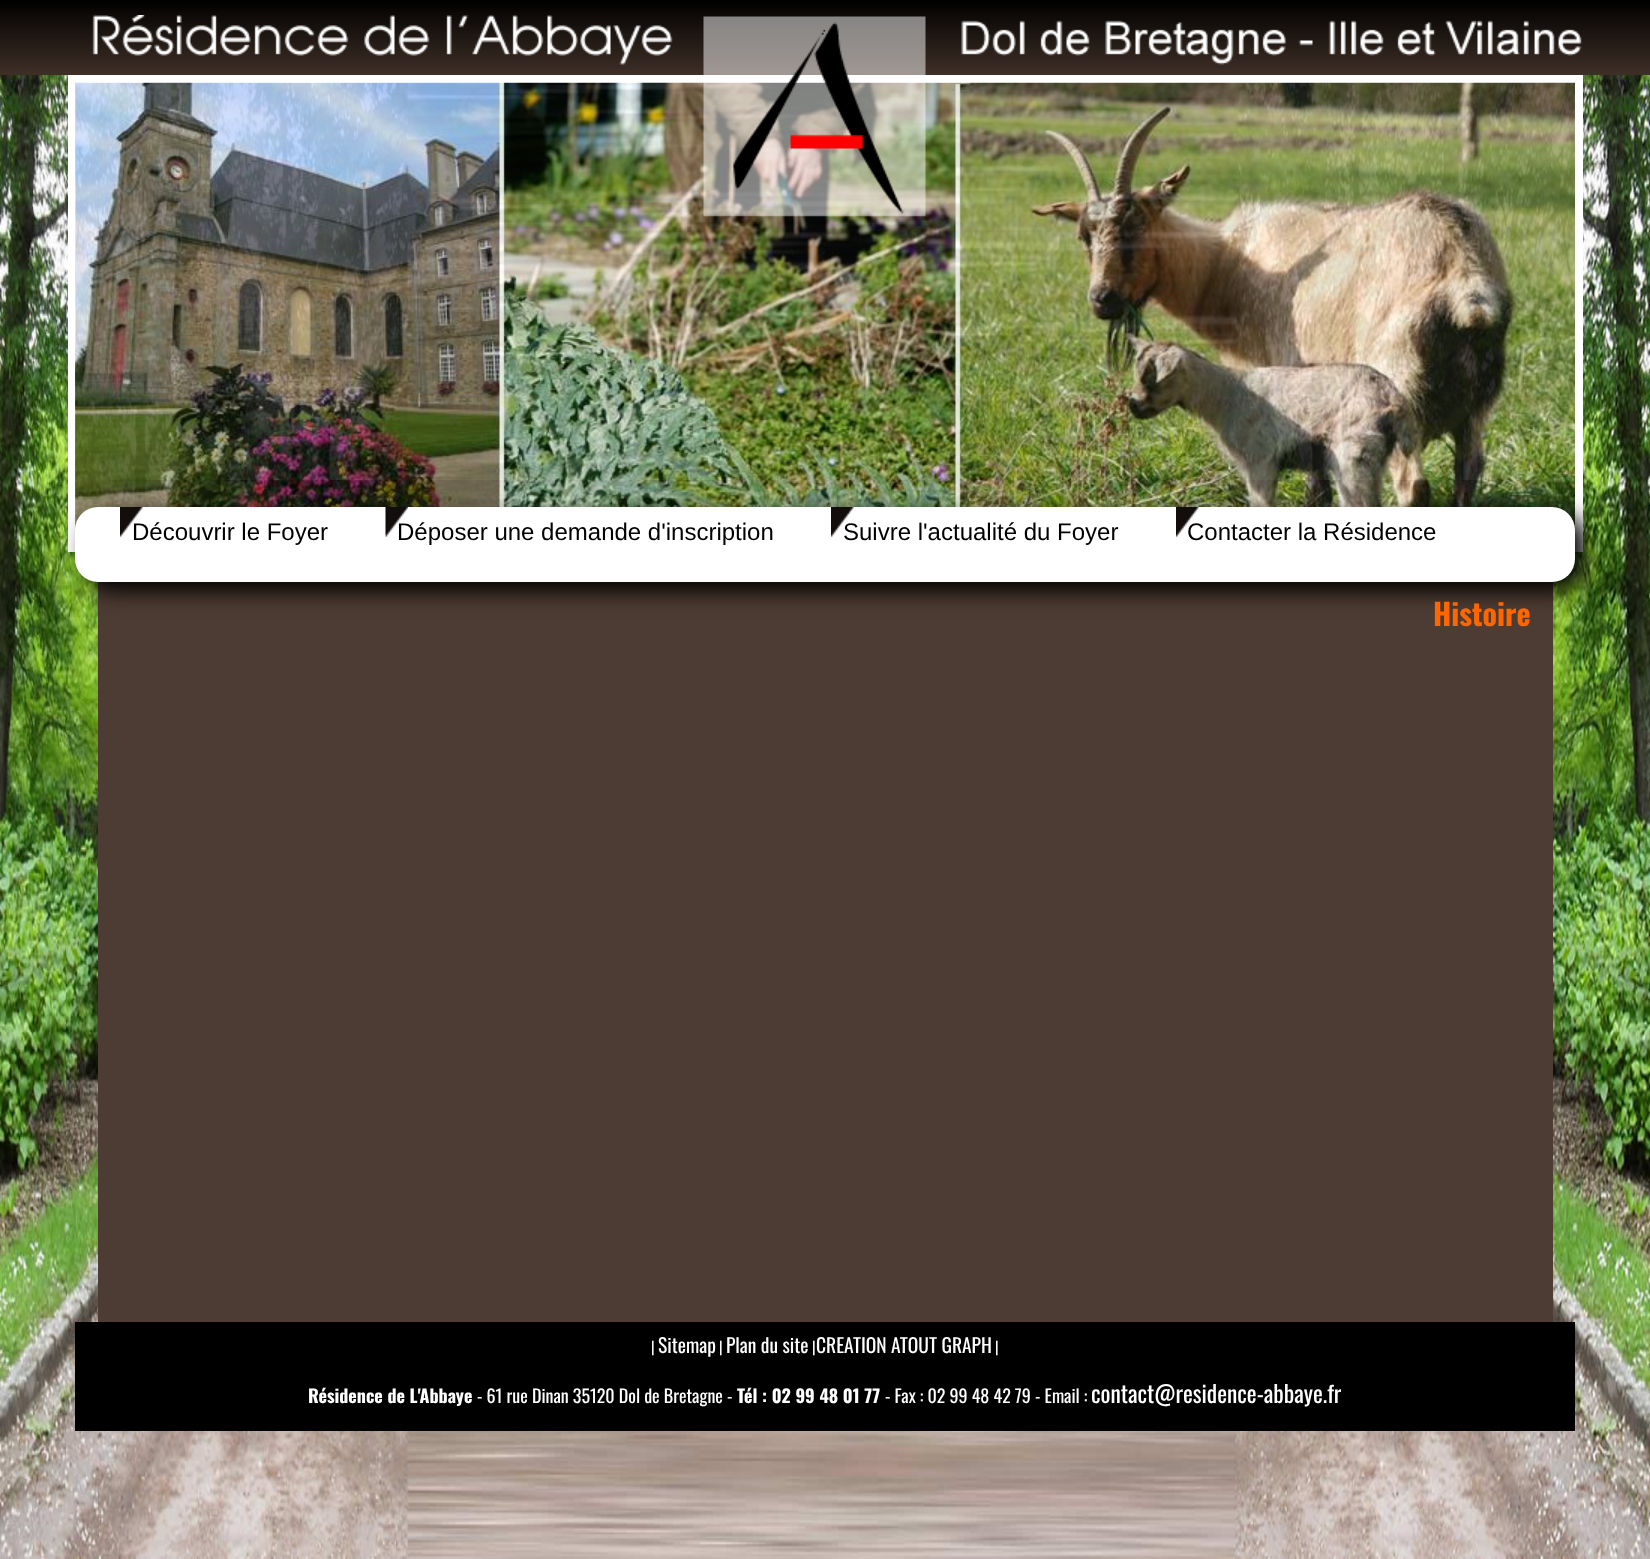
<!DOCTYPE html>
<meta charset="utf-8">
<style>body { margin: 0 } canvas { display: block }</style>
<canvas id="canvas" width="1650" height="1559"></canvas>
<img id="img1" src="img_01.png" hidden>
<img id="img2" src="img_02.png" hidden>
<img id="img3" src="img_03.png" hidden>
<img id="img4" src="img_05.png" hidden>
<img id="img5" src="img_04.png" hidden>
<img id="img6" src="img_06.png" hidden>
<img id="img7" src="img_07.png" hidden>
<img id="img8" src="img_08.png" hidden>
<script>
window.onload = function () {
	const canvas = document.getElementById("canvas");
	const ctx = canvas.getContext("2d");
	ctx.miterLimit = 4;
	ctx.fontKerning = "normal";
	function txt(s, x, y) {
		ctx.fillText(s, x, y);
	}
	function fill(x, y, w, h) {
		ctx.fillRect(x, y, w, h);
	}
	function round(x, y, w, h, r) {
		ctx.beginPath();
		ctx.roundRect(x, y, w, h, r);
		ctx.fill();
	}
	function img(id, x, y, w, h) {
		ctx.drawImage(document.getElementById(id), x, y, w, h);
	}

	ctx.fillStyle = "#FFFFFF";
	fill(0, 0, 1650, 1559);
	img("img1", 0, 75, 1650, 1484);
	img("img2", 0, 0, 1650, 75);
	img("img3", 76, 480, 1495, 26);
	ctx.strokeStyle = "#FFFFFF";
	ctx.lineWidth = 8;
	ctx.strokeRect(72, 79, 1507, 469);
	img("img4", 75, 82, 1500, 448);
	img("img5", 92, 15, 1490, 202);
	ctx.fillStyle = "#4D3C33";
	fill(98, 581, 1455, 741);
	ctx.fillStyle = "#000000";
	ctx.filter = "blur(11px)";
	ctx.beginPath();
	ctx.roundRect(86, 516, 1500, 75, 23);
	ctx.fill();
	ctx.filter = "none";
	ctx.fillStyle = "#FFFFFF";
	round(75, 507, 1500, 75, 23);
	img("img6", 120, 507, 23, 30);
	img("img7", 385, 507, 23, 30);
	img("img6", 831, 507, 23, 30);
	img("img8", 1176, 507, 23, 30);
	ctx.fillStyle = "#000000";
	fill(75, 1322, 1500, 109);
	ctx.font = "24px Liberation Sans";
	txt("Découvrir le Foyer", 132, 540);
	txt("Déposer une demande d'inscription", 397, 540);
	txt("Suivre l'actualité du Foyer", 843, 540);
	txt("Contacter la Résidence", 1187, 540);
	ctx.font = "bold 30px Oswald";
	ctx.fillStyle = "#FF6600";
	txt("Histoire", 1433, 626);
	ctx.font = "15px Oswald";
	ctx.fillStyle = "#FFFFFF";
	txt("|", 651, 1353);
	ctx.font = "19.5px Oswald";
	txt("Sitemap", 658, 1353);
	ctx.font = "15px Oswald";
	txt("|", 719, 1353);
	ctx.font = "19.5px Oswald";
	txt("Plan du site", 726, 1353);
	ctx.font = "15px Oswald";
	txt("|", 812, 1353);
	ctx.font = "19.5px Oswald";
	txt("CREATION ATOUT GRAPH", 816, 1353);
	ctx.font = "15px Oswald";
	txt("|", 995, 1353);
	ctx.font = "bold 18px Oswald";
	txt("Résidence de L'Abbaye", 308, 1403);
	ctx.font = "18px Oswald";
	txt("- 61 rue Dinan 35120 Dol de Bretagne -", 477, 1403);
	ctx.font = "bold 18px Oswald";
	txt("Tél : 02 99 48 01 77", 737, 1403);
	ctx.font = "18px Oswald";
	txt("- Fax : 02 99 48 42 79 - Email :", 885, 1403);
	ctx.font = "23.4px Oswald";
	txt("contact@residence-abbaye.fr", 1091, 1403);
};
</script>
